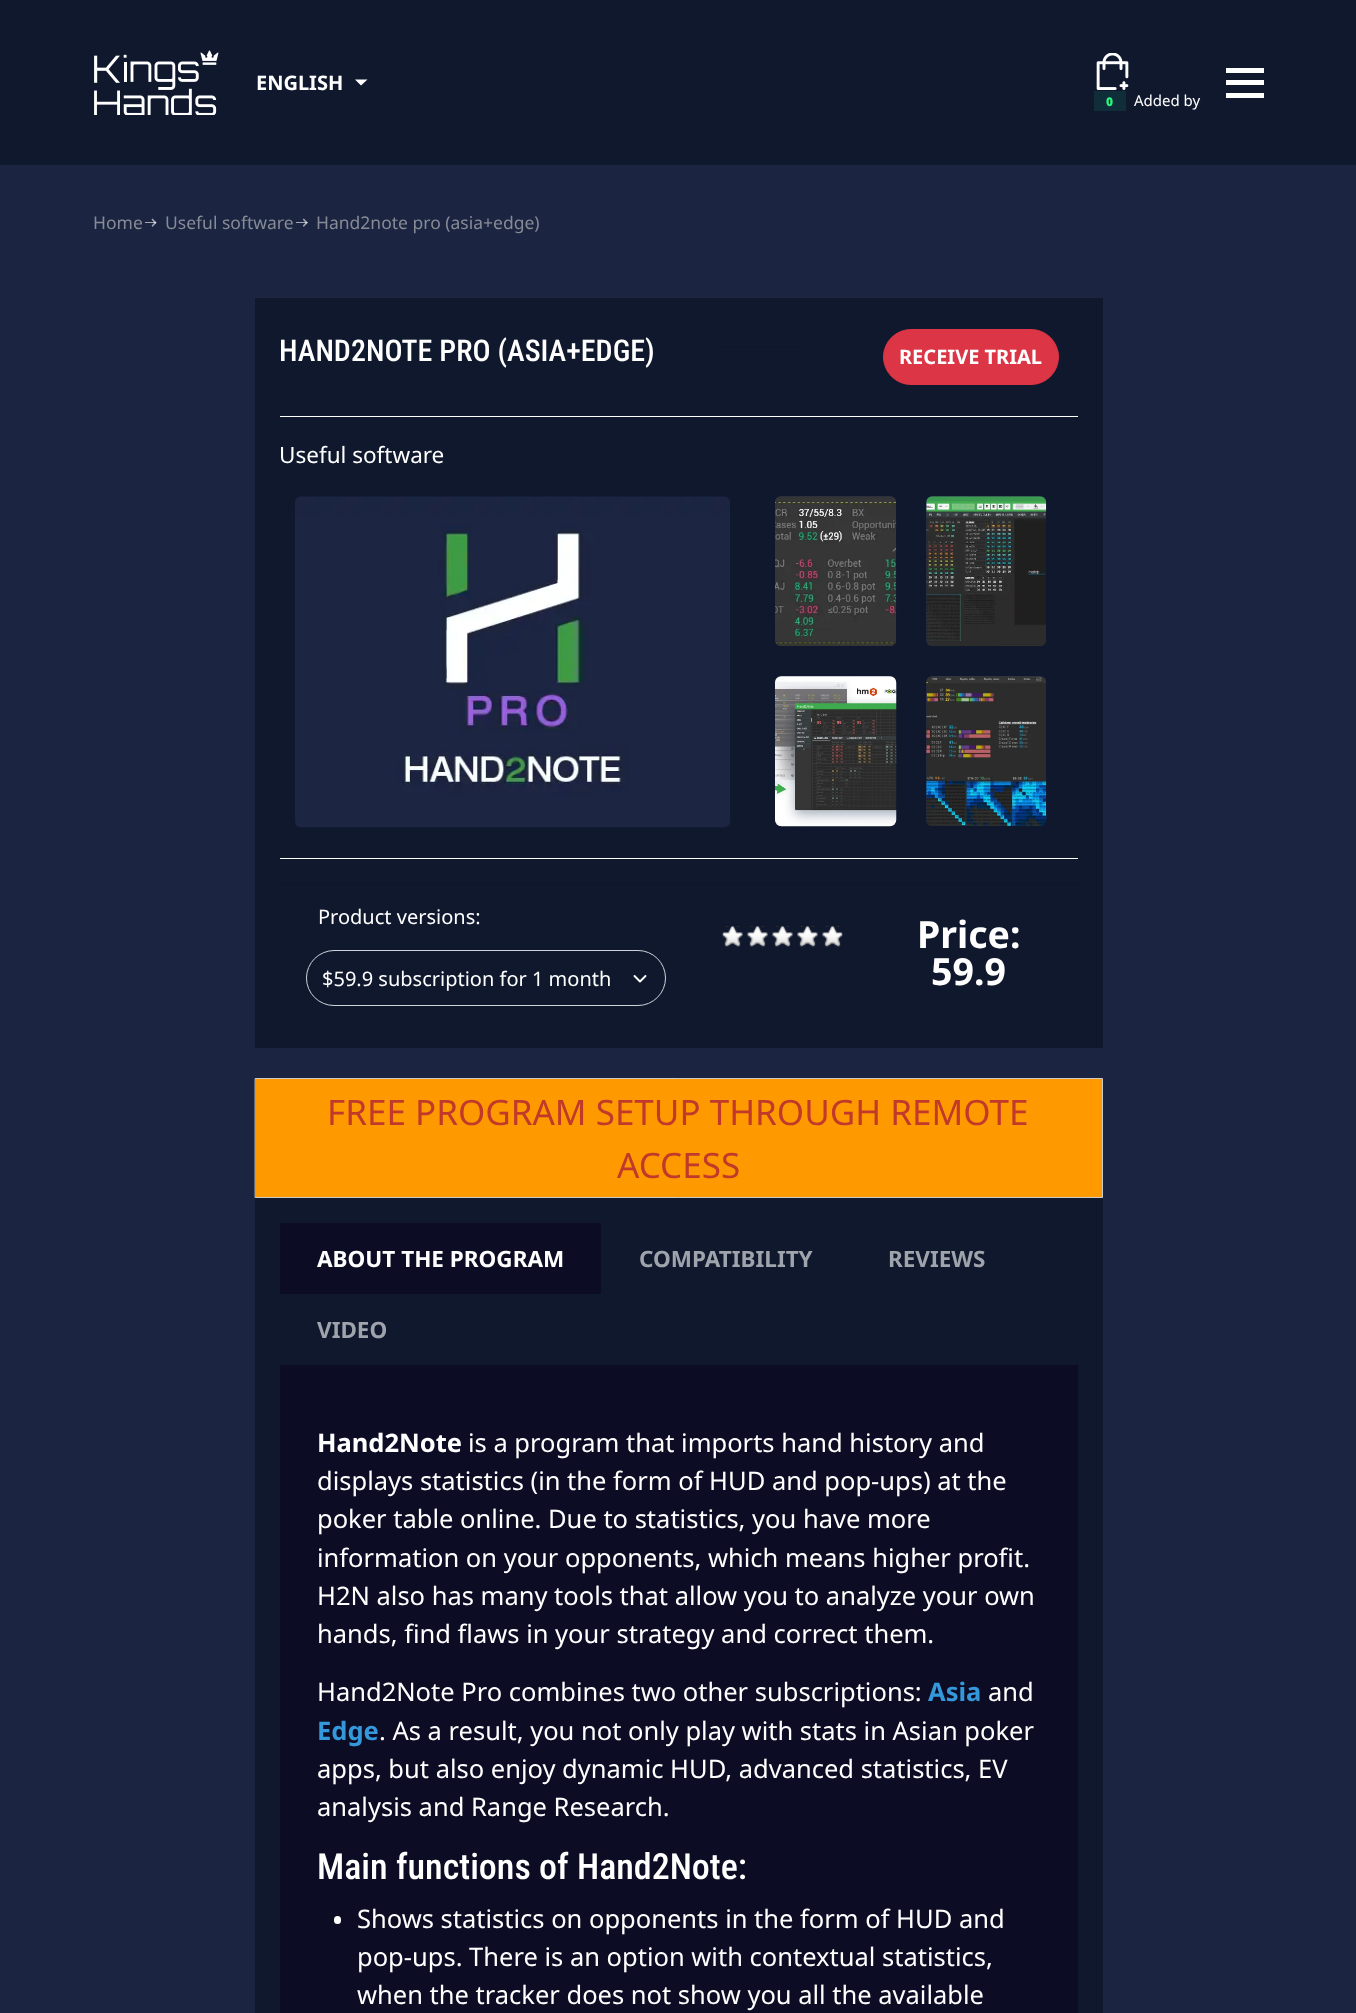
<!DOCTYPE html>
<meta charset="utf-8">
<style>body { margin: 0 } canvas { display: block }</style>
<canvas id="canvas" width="1356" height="2013"></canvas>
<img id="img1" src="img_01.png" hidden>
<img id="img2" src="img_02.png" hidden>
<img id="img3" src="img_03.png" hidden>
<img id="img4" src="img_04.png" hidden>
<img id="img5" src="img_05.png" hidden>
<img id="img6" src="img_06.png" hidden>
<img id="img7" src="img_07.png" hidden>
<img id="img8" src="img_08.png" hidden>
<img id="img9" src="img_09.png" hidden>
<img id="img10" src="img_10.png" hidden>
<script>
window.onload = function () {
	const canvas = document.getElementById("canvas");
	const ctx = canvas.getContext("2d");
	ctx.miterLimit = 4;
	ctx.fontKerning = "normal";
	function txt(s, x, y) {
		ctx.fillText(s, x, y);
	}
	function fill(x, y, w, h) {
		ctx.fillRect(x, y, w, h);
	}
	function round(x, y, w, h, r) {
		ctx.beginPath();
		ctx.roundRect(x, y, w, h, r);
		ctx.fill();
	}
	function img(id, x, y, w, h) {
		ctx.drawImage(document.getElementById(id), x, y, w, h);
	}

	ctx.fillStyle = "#1B2541";
	fill(0, 0, 1356, 2013);
	ctx.fillStyle = "#10182E";
	fill(0, 0, 1356, 165);
	img("img1", 94, 50, 125, 65);
	ctx.fillStyle = "#FFFFFF";
	ctx.beginPath();
	ctx.moveTo(355, 79.5);
	ctx.lineTo(367.5, 79.5);
	ctx.lineTo(361, 85.5);
	ctx.closePath();
	ctx.fill();
	fill(1226, 68, 38, 5);
	fill(1226, 80, 38, 5);
	fill(1226, 93, 38, 5);
	img("img2", 1096, 53, 33, 37);
	ctx.fillStyle = "#102D3A";
	fill(1094, 91, 32, 20);
	img("img3", 145, 218, 12, 9);
	img("img4", 296, 218, 12, 9);
	ctx.fillStyle = "#10182E";
	fill(255, 298, 848, 750);
	ctx.fillStyle = "#FFFFFF";
	fill(280, 416, 798, 1);
	ctx.fillStyle = "#0E1528";
	fill(721, 346, 78, 1);
	ctx.fillStyle = "#DC3545";
	ctx.beginPath();
	ctx.roundRect(883.5, 329.5, 175, 55, 27.5);
	ctx.fill();
	ctx.strokeStyle = "#DC3545";
	ctx.stroke();
	ctx.fillStyle = "#FFFFFF";
	fill(280, 858, 798, 1);
	img("img5", 295, 496, 435, 332);
	ctx.fillStyle = "#242D49";
	round(775, 496, 121, 150, 6);
	img("img6", 775, 496, 122, 150);
	round(926, 496, 120, 150, 6);
	img("img7", 926, 496, 121, 150);
	round(775, 676, 121, 150, 6);
	img("img8", 774, 676, 123, 151);
	round(926, 676, 120, 150, 6);
	img("img9", 926, 676, 121, 150);
	ctx.fillStyle = "#0E1528";
	fill(280, 884, 798, 1);
	ctx.beginPath();
	ctx.moveTo(634.5, 976);
	ctx.lineTo(640, 981.5);
	ctx.lineTo(645.5, 976);
	ctx.strokeStyle = "#FFFFFF";
	ctx.lineWidth = 1.9;
	ctx.lineCap = "round";
	ctx.lineJoin = "round";
	ctx.stroke();
	ctx.beginPath();
	ctx.roundRect(306.5, 950.5, 359, 55, 27.5);
	ctx.strokeStyle = "#CED4DA";
	ctx.lineWidth = 1;
	ctx.lineJoin = "miter";
	ctx.stroke();
	img("img10", 722, 926, 121, 21);
	ctx.fillStyle = "#FF9900";
	ctx.beginPath();
	ctx.rect(255.5, 1078.5, 847, 119);
	ctx.fill();
	ctx.strokeStyle = "#CCCCCC";
	ctx.stroke();
	ctx.fillStyle = "#10182E";
	fill(255, 1198, 848, 815);
	ctx.fillStyle = "#0C0C25";
	fill(280, 1223, 321, 71);
	fill(280, 1365, 798, 648);
	ctx.fillStyle = "#FFFFFF";
	round(334, 1916, 7, 8, 3.5);
	ctx.font = "bold 20px Noto Sans";
	txt("ENGLISH", 256, 90);
	ctx.font = "900 12px Noto Sans";
	ctx.fillStyle = "#2AF67E";
	txt("0", 1106, 106);
	ctx.font = "15px Noto Sans";
	ctx.fillStyle = "#FFFFFF";
	txt("Added by", 1134, 106);
	ctx.font = "17.5px Noto Sans";
	ctx.fillStyle = "#878B96";
	txt("Home", 93, 229);
	txt("Useful software", 165, 229);
	txt("Hand2note pro (asia+edge)", 316, 229);
	ctx.font = "500 30px Roboto Condensed";
	ctx.fillStyle = "#FFFFFF";
	txt("HAND2NOTE PRO (ASIA+EDGE)", 279, 361);
	ctx.font = "bold 20px Noto Sans";
	txt("RECEIVE TRIAL", 899, 364);
	ctx.font = "22.5px Noto Sans";
	txt("Useful software", 279, 463);
	ctx.font = "20px Noto Sans";
	txt("Product versions:", 318, 924);
	txt("$59.9 subscription for 1 month", 322, 986);
	ctx.font = "bold 37.5px Noto Sans";
	txt("Price:", 917, 948);
	txt("59.9", 931, 985);
	ctx.font = "35px Noto Sans";
	ctx.fillStyle = "#C0392B";
	txt("FREE PROGRAM SETUP THROUGH REMOTE", 327, 1125);
	txt("ACCESS", 617, 1178);
	ctx.font = "bold 22.5px Noto Sans";
	ctx.fillStyle = "#FFFFFF";
	txt("ABOUT THE PROGRAM", 317, 1267);
	ctx.fillStyle = "#9FA3AB";
	txt("COMPATIBILITY", 639, 1267);
	txt("REVIEWS", 888, 1267);
	txt("VIDEO", 317, 1338);
	ctx.font = "bold 25.5px Noto Sans";
	ctx.fillStyle = "#FFFFFF";
	txt("Hand2Note", 317, 1452);
	ctx.font = "25.5px Noto Sans";
	txt("is a program that imports hand history and", 468, 1452);
	txt("displays statistics (in the form of HUD and pop-ups) at the", 317, 1490);
	txt("poker table online. Due to statistics, you have more", 317, 1528);
	txt("information on your opponents, which means higher profit.", 317, 1567);
	txt("H2N also has many tools that allow you to analyze your own", 317, 1605);
	txt("hands, find flaws in your strategy and correct them.", 317, 1643);
	txt("Hand2Note Pro combines two other subscriptions:", 317, 1701);
	ctx.font = "bold 25.5px Noto Sans";
	ctx.fillStyle = "#3498DB";
	txt("Asia", 928, 1701);
	ctx.font = "25.5px Noto Sans";
	ctx.fillStyle = "#FFFFFF";
	txt("and", 988, 1701);
	ctx.font = "bold 25.5px Noto Sans";
	ctx.fillStyle = "#3498DB";
	txt("Edge", 317, 1740);
	ctx.font = "25.5px Noto Sans";
	ctx.fillStyle = "#FFFFFF";
	txt(". As a result, you not only play with stats in Asian poker", 379, 1740);
	txt("apps, but also enjoy dynamic HUD, advanced statistics, EV", 317, 1778);
	txt("analysis and Range Research.", 317, 1816);
	ctx.font = "500 36px Roboto Condensed";
	txt("Main functions of Hand2Note:", 317, 1879);
	ctx.font = "25.5px Noto Sans";
	txt("Shows statistics on opponents in the form of HUD and", 357, 1928);
	txt("pop-ups. There is an option with contextual statistics,", 357, 1966);
	txt("when the tracker does not show you all the available", 357, 2004);
};
</script>
